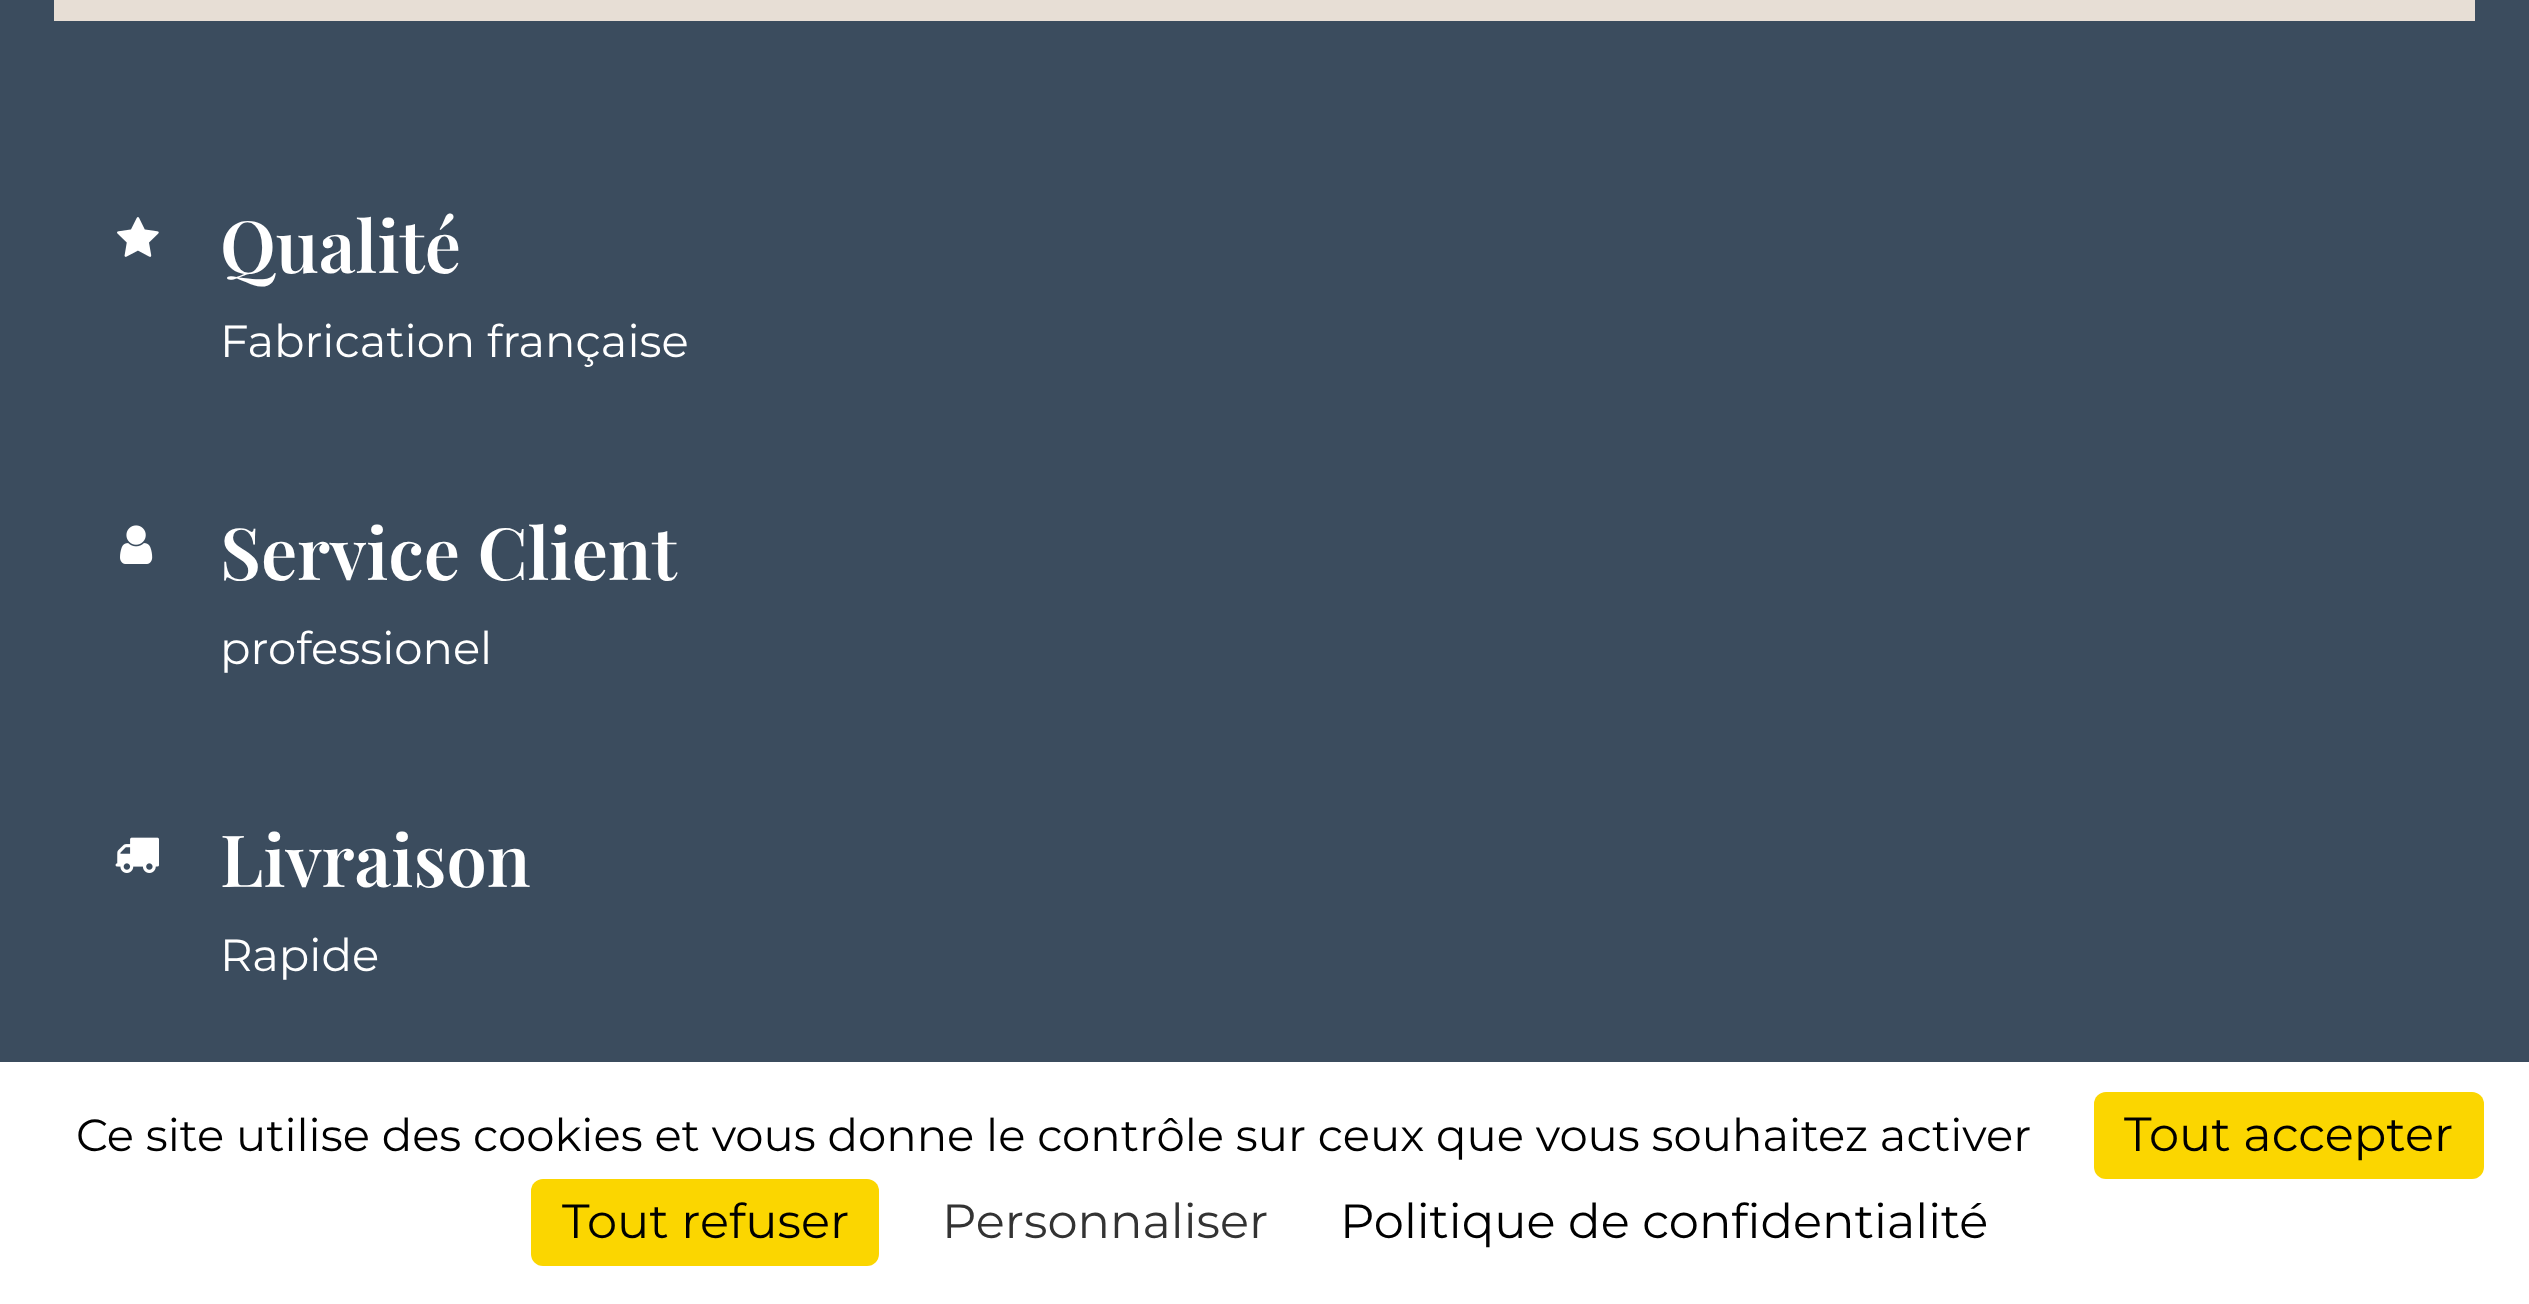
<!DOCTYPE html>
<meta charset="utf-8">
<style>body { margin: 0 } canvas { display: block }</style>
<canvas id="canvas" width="2529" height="1304"></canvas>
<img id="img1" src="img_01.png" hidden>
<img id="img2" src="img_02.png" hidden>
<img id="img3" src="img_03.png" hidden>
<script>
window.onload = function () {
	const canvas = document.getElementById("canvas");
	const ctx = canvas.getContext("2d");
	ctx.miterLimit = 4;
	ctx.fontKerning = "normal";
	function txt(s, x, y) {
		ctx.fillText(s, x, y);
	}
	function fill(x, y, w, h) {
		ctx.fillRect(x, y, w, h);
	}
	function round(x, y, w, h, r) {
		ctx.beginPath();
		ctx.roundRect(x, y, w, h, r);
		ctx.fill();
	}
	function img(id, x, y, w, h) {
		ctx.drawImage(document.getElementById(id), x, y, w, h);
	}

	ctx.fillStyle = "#3B4C5E";
	fill(0, 0, 2529, 1304);
	ctx.fillStyle = "#E7DED5";
	fill(54, 0, 2421, 21);
	img("img1", 117, 217, 42, 40);
	img("img2", 120, 525, 33, 39);
	img("img3", 115, 837, 44, 36);
	ctx.fillStyle = "#FFFFFF";
	fill(0, 1062, 2529, 242);
	ctx.fillStyle = "#FBD600";
	round(2094, 1092, 390, 87, 12);
	round(531, 1179, 348, 87, 12);
	ctx.font = "600 72px Playfair Display";
	ctx.fillStyle = "#FFFFFF";
	txt("Qualité", 220, 273);
	ctx.font = "45px Montserrat";
	txt("Fabrication française", 220, 357);
	ctx.font = "600 72px Playfair Display";
	txt("Service Client", 220, 580);
	ctx.font = "45px Montserrat";
	txt("professionel", 220, 664);
	ctx.font = "600 72px Playfair Display";
	txt("Livraison", 220, 887);
	ctx.font = "45px Montserrat";
	txt("Rapide", 220, 971);
	ctx.fillStyle = "#000000";
	txt("Ce site utilise des cookies et vous donne le contrôle sur ceux que vous souhaitez activer", 76, 1151);
	ctx.font = "48px Montserrat";
	txt("Tout accepter", 2124, 1151);
	txt("Tout refuser", 562, 1238);
	ctx.fillStyle = "#333333";
	txt("Personnaliser", 942, 1238);
	ctx.fillStyle = "#000000";
	txt("Politique de confidentialité", 1340, 1238);
};
</script>
